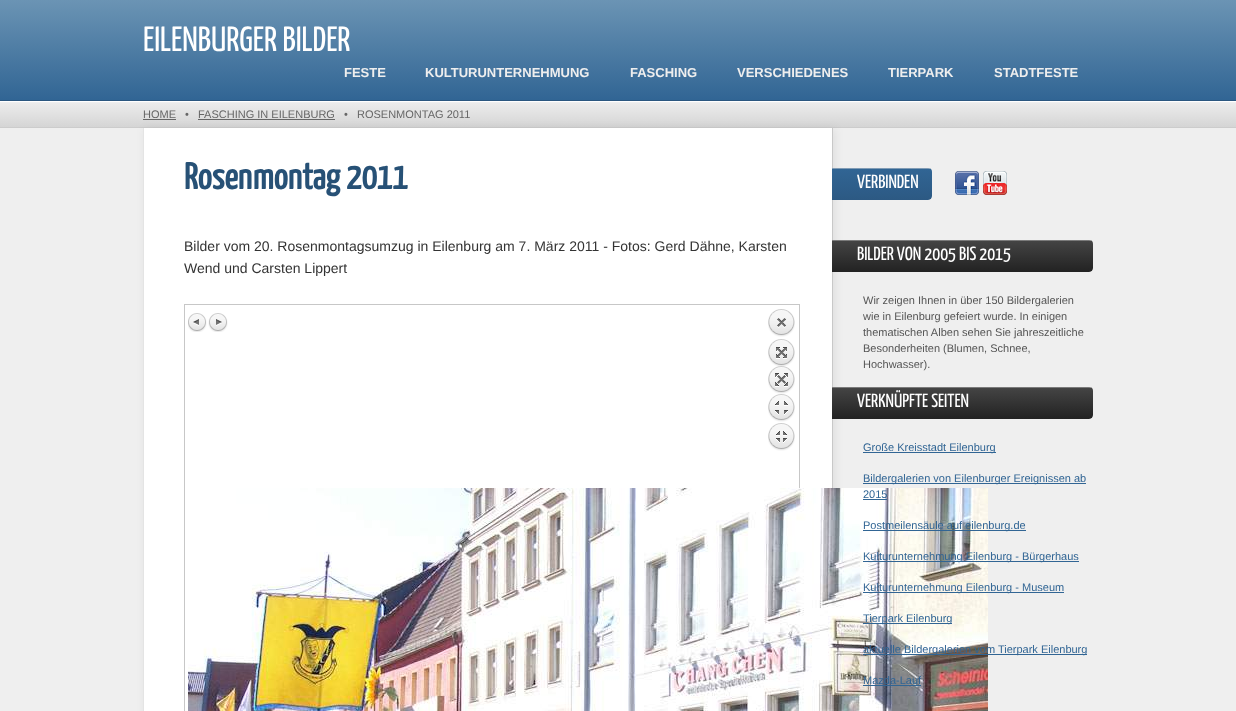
<!DOCTYPE html>
<meta charset="utf-8">
<style>body { margin: 0 } canvas { display: block }</style>
<canvas id="canvas" width="1236" height="711"></canvas>
<img id="img1" src="img_01.png" hidden>
<img id="img2" src="img_02.png" hidden>
<img id="img3" src="img_03.png" hidden>
<img id="img4" src="img_04.png" hidden>
<img id="img5" src="img_05.png" hidden>
<img id="img6" src="img_06.png" hidden>
<script>
window.onload = function () {
	const canvas = document.getElementById("canvas");
	const ctx = canvas.getContext("2d");
	ctx.miterLimit = 4;
	ctx.fontKerning = "normal";
	function txt(s, x, y) {
		ctx.fillText(s, x, y);
	}
	function fill(x, y, w, h) {
		ctx.fillRect(x, y, w, h);
	}
	function img(id, x, y, w, h) {
		ctx.drawImage(document.getElementById(id), x, y, w, h);
	}
	let gradient;

	ctx.fillStyle = "#EFEFEF";
	fill(0, 0, 1236, 711);
	gradient = ctx.createLinearGradient(0, 0, 0, 100);
	gradient.addColorStop(0, "#6B94B4");
	gradient.addColorStop(1, "#316594");
	ctx.fillStyle = gradient;
	fill(0, 0, 1236, 100);
	ctx.fillStyle = "#2B5780";
	fill(0, 100, 1236, 1);
	gradient = ctx.createLinearGradient(0, 102, 0, 127);
	gradient.addColorStop(0, "#EDEDED");
	gradient.addColorStop(1, "#D5D5D5");
	ctx.fillStyle = gradient;
	fill(0, 103, 1236, 24);
	ctx.fillStyle = "#FFFFFF";
	fill(0, 101, 1236, 1);
	ctx.fillStyle = "#CCCCCC";
	fill(0, 127, 1236, 1);
	ctx.fillStyle = "#666666";
	fill(143, 119, 33, 1);
	fill(198, 119, 137, 1);
	ctx.fillStyle = "rgba(0, 0, 0, 0.07)";
	ctx.filter = "blur(5px)";
	ctx.beginPath();
	ctx.rect(145, 129, 690, 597);
	ctx.fill();
	ctx.filter = "none";
	ctx.fillStyle = "#FFFFFF";
	fill(144, 128, 688, 583);
	ctx.fillStyle = "#C8C8C8";
	fill(832, 128, 1, 360);
	ctx.fillStyle = "#E4E4E4";
	fill(143, 128, 1, 583);
	ctx.strokeStyle = "#C7C7C7";
	ctx.strokeRect(184.5, 304.5, 615, 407);
	img("img1", 188, 313, 19, 19);
	img("img2", 208, 313, 20, 19);
	img("img3", 768, 309, 27, 142);
	img("img4", 188, 488, 800, 223);
	ctx.save();
	ctx.beginPath();
	ctx.roundRect(832, 168, 100, 32, [0, 4, 4, 0]);
	ctx.clip();
	gradient = ctx.createLinearGradient(832, 138, 832, 169);
	gradient.addColorStop(0, "#316594");
	gradient.addColorStop(1, "#2C5983");
	ctx.fillStyle = gradient;
	fill(832, 168, 100, 1);
	gradient = ctx.createLinearGradient(832, 169, 832, 200);
	gradient.addColorStop(0, "#316594");
	gradient.addColorStop(1, "#2C5983");
	ctx.fillStyle = gradient;
	ctx.beginPath();
	ctx.roundRect(832, 169, 100, 31, [0, 0, 4, 0]);
	ctx.fill();
	ctx.restore();
	ctx.fillStyle = "rgba(255, 255, 255, 0.4)";
	fill(832, 168, 98, 1);
	img("img5", 955, 171, 24, 24);
	img("img6", 983, 171, 24, 24);
	ctx.save();
	ctx.beginPath();
	ctx.roundRect(832, 240, 261, 32, [0, 4, 4, 0]);
	ctx.clip();
	gradient = ctx.createLinearGradient(832, 210, 832, 241);
	gradient.addColorStop(0, "#444444");
	gradient.addColorStop(1, "#222222");
	ctx.fillStyle = gradient;
	fill(832, 240, 261, 1);
	gradient = ctx.createLinearGradient(832, 241, 832, 272);
	gradient.addColorStop(0, "#444444");
	gradient.addColorStop(1, "#222222");
	ctx.fillStyle = gradient;
	ctx.beginPath();
	ctx.roundRect(832, 241, 261, 31, [0, 0, 4, 0]);
	ctx.fill();
	ctx.restore();
	fill(832, 240, 259, 1);
	ctx.save();
	ctx.beginPath();
	ctx.roundRect(832, 387, 261, 32, [0, 4, 4, 0]);
	ctx.clip();
	gradient = ctx.createLinearGradient(832, 357, 832, 388);
	gradient.addColorStop(0, "#444444");
	gradient.addColorStop(1, "#222222");
	ctx.fillStyle = gradient;
	fill(832, 387, 261, 1);
	gradient = ctx.createLinearGradient(832, 388, 832, 419);
	gradient.addColorStop(0, "#444444");
	gradient.addColorStop(1, "#222222");
	ctx.fillStyle = gradient;
	ctx.beginPath();
	ctx.roundRect(832, 388, 261, 31, [0, 0, 4, 0]);
	ctx.fill();
	ctx.restore();
	fill(832, 387, 259, 1);
	ctx.fillStyle = "#316594";
	fill(863, 452, 133, 1);
	fill(863, 483, 223, 1);
	fill(863, 499, 24, 1);
	fill(863, 530, 163, 1);
	fill(863, 561, 216, 1);
	fill(863, 592, 201, 1);
	fill(863, 623, 89, 1);
	fill(863, 654, 224, 1);
	fill(863, 685, 58, 1);
	ctx.font = "200 35px Yanone Kaffeesatz";
	ctx.fillStyle = "#FFFFFF";
	txt("EILENBURGER BILDER", 143, 51);
	ctx.font = "bold 13px Liberation Sans";
	ctx.fillStyle = "#EEEEEE";
	txt("FESTE", 344, 77);
	txt("KULTURUNTERNEHMUNG", 425, 77);
	txt("FASCHING", 630, 77);
	txt("VERSCHIEDENES", 737, 77);
	txt("TIERPARK", 888, 77);
	txt("STADTFESTE", 994, 77);
	ctx.font = "11px Liberation Sans";
	ctx.fillStyle = "#666666";
	txt("HOME", 143, 118);
	txt("•", 185, 118);
	txt("FASCHING IN EILENBURG", 198, 118);
	txt("•", 344, 118);
	txt("ROSENMONTAG 2011", 357, 118);
	ctx.font = "bold 37px Yanone Kaffeesatz";
	ctx.fillStyle = "#275176";
	txt("Rosenmontag 2011", 184, 189);
	ctx.font = "14px Liberation Sans";
	ctx.fillStyle = "#333333";
	txt("Bilder vom 20. Rosenmontagsumzug in Eilenburg am 7. März 2011 - Fotos: Gerd Dähne, Karsten", 184, 251);
	txt("Wend und Carsten Lippert", 184, 273);
	ctx.font = "200 19px Yanone Kaffeesatz";
	ctx.fillStyle = "#FFFFFF";
	txt("VERBINDEN", 857, 188);
	txt("BILDER VON 2005 BIS 2015", 857, 260);
	ctx.font = "11px Liberation Sans";
	ctx.fillStyle = "#555555";
	txt("Wir zeigen Ihnen in über 150 Bildergalerien", 863, 304);
	txt("wie in Eilenburg gefeiert wurde. In einigen", 863, 320);
	txt("thematischen Alben sehen Sie jahreszeitliche", 863, 336);
	txt("Besonderheiten (Blumen, Schnee,", 863, 352);
	txt("Hochwasser).", 863, 368);
	ctx.font = "200 19px Yanone Kaffeesatz";
	ctx.fillStyle = "#FFFFFF";
	txt("VERKNÜPFTE SEITEN", 857, 407);
	ctx.font = "11px Liberation Sans";
	ctx.fillStyle = "#316594";
	txt("Große Kreisstadt Eilenburg", 863, 451);
	txt("Bildergalerien von Eilenburger Ereignissen ab", 863, 482);
	txt("2015", 863, 498);
	txt("Postmeilensäule auf eilenburg.de", 863, 529);
	txt("Kulturunternehmung Eilenburg - Bürgerhaus", 863, 560);
	txt("Kulturunternehmung Eilenburg - Museum", 863, 591);
	txt("Tierpark Eilenburg", 863, 622);
	txt("aktuelle Bildergalerien vom Tierpark Eilenburg", 863, 653);
	txt("Mazda-Lauf", 863, 684);
};
</script>
